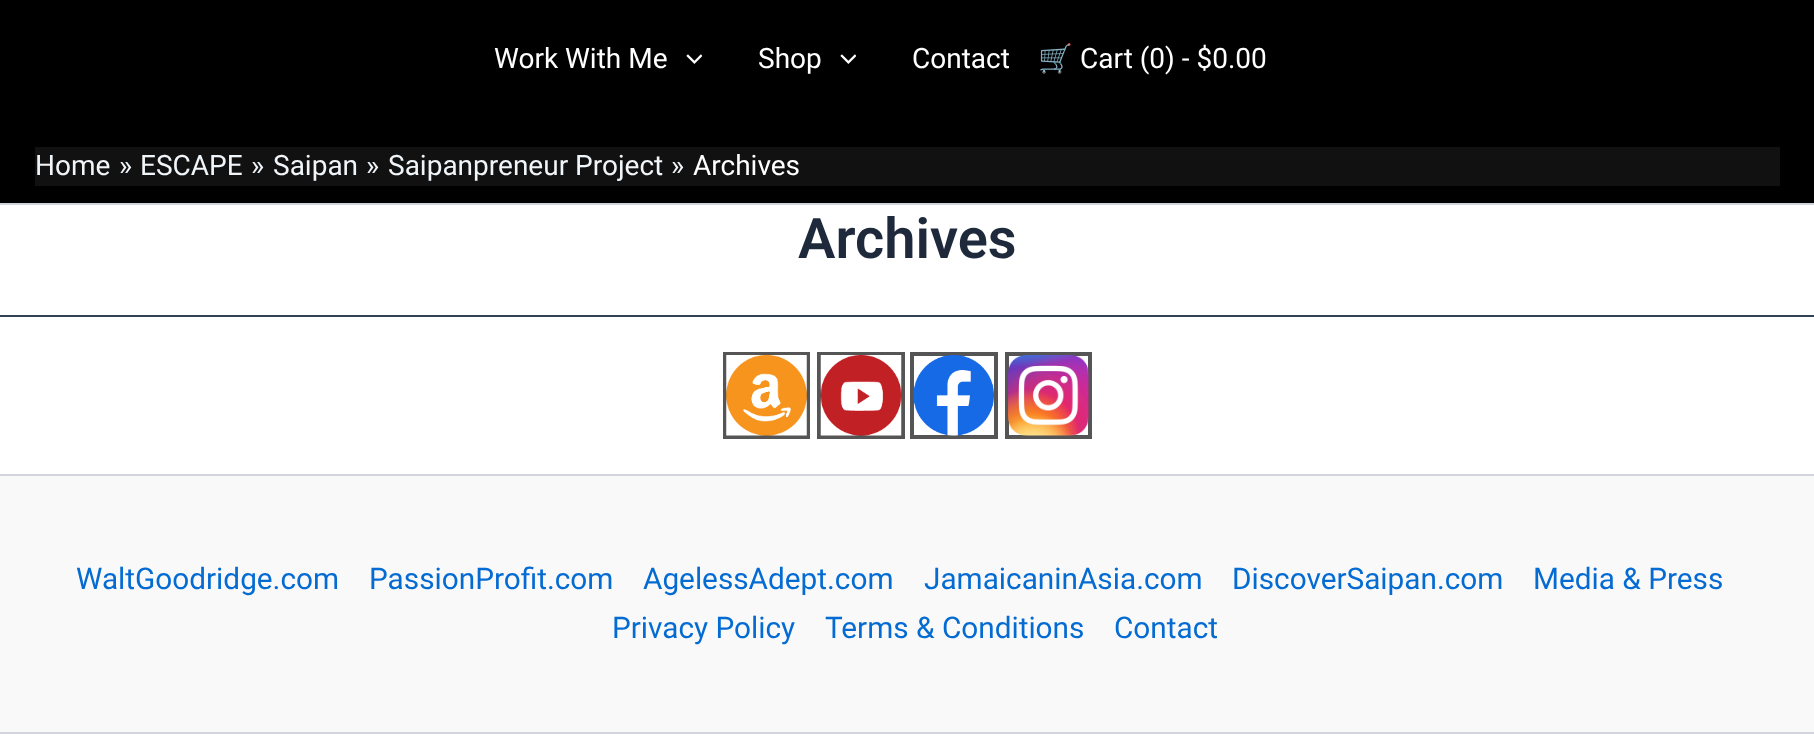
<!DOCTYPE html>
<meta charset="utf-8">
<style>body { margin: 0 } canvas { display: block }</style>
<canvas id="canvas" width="1814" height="738"></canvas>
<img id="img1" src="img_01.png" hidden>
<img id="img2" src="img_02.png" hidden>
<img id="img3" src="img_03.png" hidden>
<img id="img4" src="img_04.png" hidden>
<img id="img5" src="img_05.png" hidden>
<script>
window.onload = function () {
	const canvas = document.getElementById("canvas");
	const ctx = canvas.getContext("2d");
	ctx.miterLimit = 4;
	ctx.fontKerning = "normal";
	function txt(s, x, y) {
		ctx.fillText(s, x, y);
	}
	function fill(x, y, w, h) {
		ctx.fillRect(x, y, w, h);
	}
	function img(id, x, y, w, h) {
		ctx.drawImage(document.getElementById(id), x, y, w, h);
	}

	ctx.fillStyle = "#FFFFFF";
	fill(0, 0, 1814, 738);
	ctx.fillStyle = "#000000";
	fill(0, 0, 1814, 203);
	img("img1", 686, 54, 16, 10);
	img("img1", 840, 54, 16, 10);
	ctx.fillStyle = "#D1D5DB";
	fill(0, 203, 1814, 2);
	ctx.fillStyle = "#111111";
	fill(35, 147, 1745, 39);
	ctx.fillStyle = "#334155";
	fill(0, 315, 1814, 2);
	ctx.strokeStyle = "#555555";
	ctx.lineWidth = 4;
	ctx.strokeRect(725, 354, 83, 83);
	img("img2", 726, 355, 81, 81);
	ctx.strokeRect(819, 354, 84, 83);
	img("img3", 820, 355, 82, 81);
	ctx.strokeRect(912, 354, 84, 83);
	img("img4", 913, 355, 81, 81);
	ctx.strokeRect(1007, 354, 83, 83);
	img("img5", 1008, 355, 81, 81);
	ctx.fillStyle = "#F9F9F9";
	fill(0, 476, 1814, 256);
	ctx.fillStyle = "#D1D5DB";
	fill(0, 474, 1814, 2);
	fill(0, 732, 1814, 2);
	ctx.font = "28px Roboto";
	ctx.fillStyle = "#FFFFFF";
	txt("Work With Me", 494, 68);
	txt("Shop", 758, 68);
	txt("Contact", 912, 68);
	ctx.font = "28px Noto Color Emoji";
	txt("🛒", 1038, 68);
	ctx.font = "28px Roboto";
	txt("Cart (0) - $0.00", 1080, 68);
	ctx.fillStyle = "#F0F5FA";
	txt("Home", 35, 175);
	txt("»", 119, 175);
	txt("ESCAPE", 140, 175);
	txt("»", 251, 175);
	txt("Saipan", 273, 175);
	txt("»", 366, 175);
	txt("Saipanpreneur Project", 388, 175);
	txt("»", 671, 175);
	ctx.fillStyle = "#FFFFFF";
	txt("Archives", 693, 175);
	ctx.font = "600 56px Roboto";
	ctx.fillStyle = "#1E293B";
	txt("Archives", 798, 258);
	ctx.font = "29.75px Roboto";
	ctx.fillStyle = "#046BD2";
	txt("WaltGoodridge.com", 76, 589);
	txt("PassionProfit.com", 369, 589);
	txt("AgelessAdept.com", 643, 589);
	txt("JamaicaninAsia.com", 924, 589);
	txt("DiscoverSaipan.com", 1232, 589);
	txt("Media & Press", 1533, 589);
	txt("Privacy Policy", 612, 638);
	txt("Terms & Conditions", 825, 638);
	txt("Contact", 1114, 638);
};
</script>
